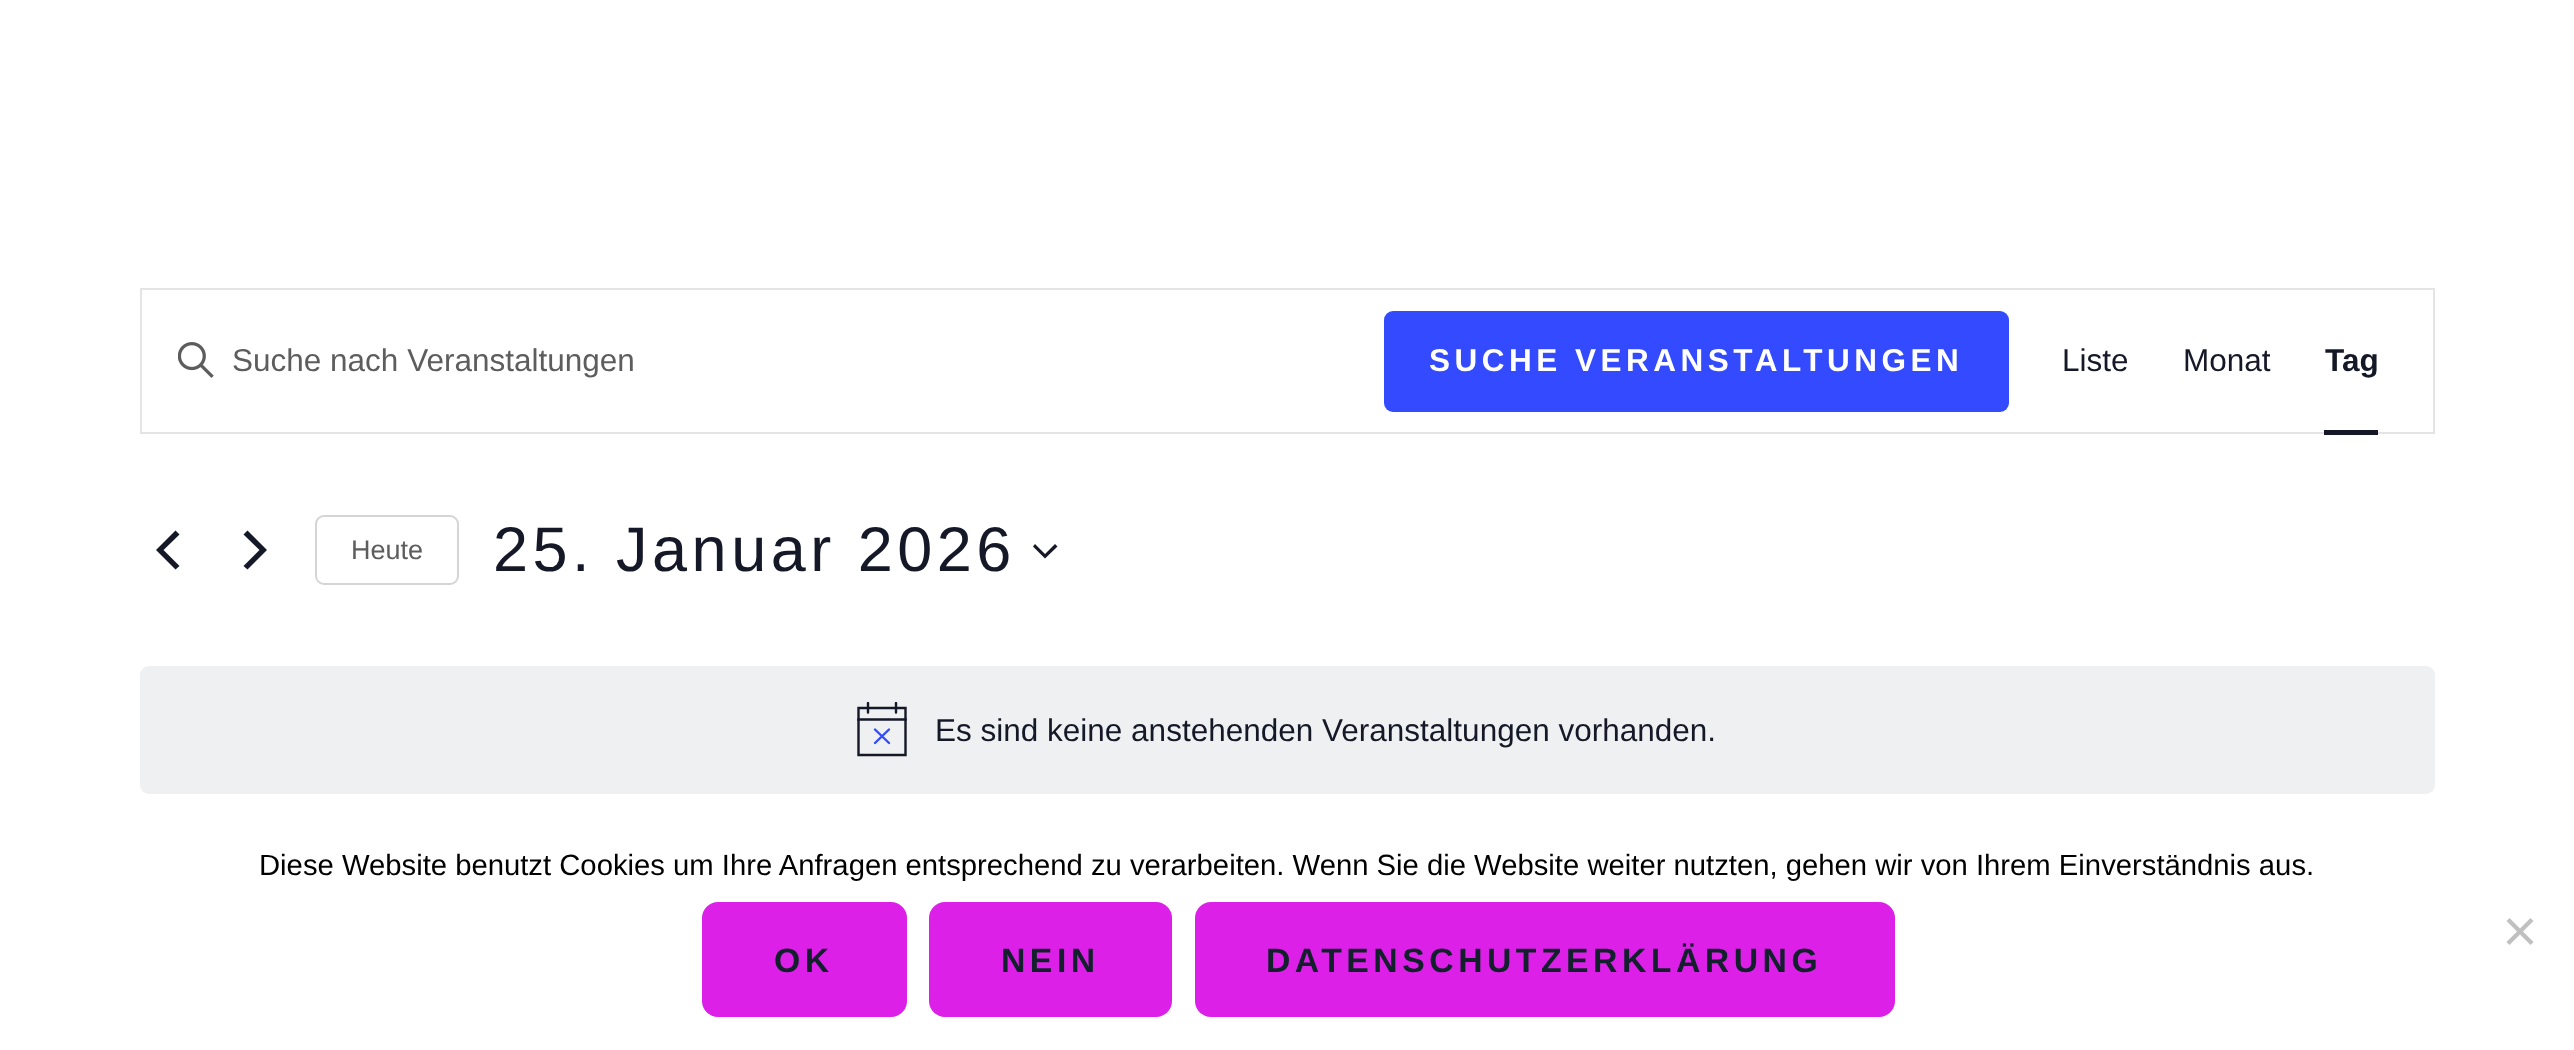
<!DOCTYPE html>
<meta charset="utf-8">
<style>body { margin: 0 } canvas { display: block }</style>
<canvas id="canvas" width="2574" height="1050"></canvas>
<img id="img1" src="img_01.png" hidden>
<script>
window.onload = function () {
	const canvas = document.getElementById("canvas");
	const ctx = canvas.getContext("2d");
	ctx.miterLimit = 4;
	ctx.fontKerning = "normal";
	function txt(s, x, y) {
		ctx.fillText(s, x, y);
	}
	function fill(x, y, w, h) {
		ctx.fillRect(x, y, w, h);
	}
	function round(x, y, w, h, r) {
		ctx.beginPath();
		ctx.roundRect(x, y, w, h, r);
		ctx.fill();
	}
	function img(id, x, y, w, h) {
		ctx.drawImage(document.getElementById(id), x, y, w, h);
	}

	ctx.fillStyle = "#FFFFFF";
	fill(0, 0, 2574, 1050);
	ctx.strokeStyle = "#E4E4E4";
	ctx.lineWidth = 2;
	ctx.strokeRect(141, 289, 2293, 144);
	img("img1", 178, 342, 36, 36);
	ctx.fillStyle = "#334AFF";
	round(1384, 311, 625, 101, 9);
	ctx.fillStyle = "#141827";
	fill(2324, 430, 54, 5);
	ctx.beginPath();
	ctx.moveTo(179.5, 566);
	ctx.lineTo(175.5, 569.5);
	ctx.lineTo(156, 550);
	ctx.lineTo(175.5, 530.5);
	ctx.lineTo(179.5, 534.5);
	ctx.lineTo(163.5, 550);
	ctx.closePath();
	ctx.fill();
	ctx.beginPath();
	ctx.moveTo(243.5, 534.5);
	ctx.lineTo(247.5, 530.5);
	ctx.lineTo(267, 550);
	ctx.lineTo(247.5, 569.5);
	ctx.lineTo(243.5, 566);
	ctx.lineTo(259.5, 550);
	ctx.closePath();
	ctx.fill();
	ctx.beginPath();
	ctx.roundRect(316, 516, 142, 68, 8);
	ctx.strokeStyle = "#D5D5D5";
	ctx.stroke();
	ctx.beginPath();
	ctx.moveTo(1035, 544);
	ctx.lineTo(1045, 554);
	ctx.lineTo(1055, 544);
	ctx.lineTo(1057.5, 546.5);
	ctx.lineTo(1045, 558.5);
	ctx.lineTo(1033, 546.5);
	ctx.closePath();
	ctx.fill("evenodd");
	ctx.fillStyle = "#EFF0F1";
	round(140, 666, 2295, 128, 9);
	ctx.beginPath();
	ctx.moveTo(858.5, 708);
	ctx.lineTo(905.5, 708);
	ctx.lineTo(905.5, 755);
	ctx.lineTo(858.5, 755);
	ctx.closePath();
	ctx.strokeStyle = "#141827";
	ctx.lineWidth = 2.4;
	ctx.stroke();
	ctx.beginPath();
	ctx.moveTo(875, 729.5);
	ctx.lineTo(889, 743);
	ctx.moveTo(889, 729.5);
	ctx.lineTo(875, 743);
	ctx.strokeStyle = "#334AFF";
	ctx.lineCap = "round";
	ctx.stroke();
	ctx.save();
	ctx.beginPath();
	ctx.rect(857, 702, 50, 56);
	ctx.clip();
	ctx.beginPath();
	ctx.moveTo(868, 703);
	ctx.lineTo(868, 712.5);
	ctx.moveTo(896, 703);
	ctx.lineTo(896, 712.5);
	ctx.strokeStyle = "#141827";
	ctx.stroke();
	ctx.restore();
	ctx.beginPath();
	ctx.moveTo(858.5, 719.5);
	ctx.lineTo(905.5, 719.5);
	ctx.strokeStyle = "#141827";
	ctx.lineCap = "square";
	ctx.stroke();
	ctx.fillStyle = "#C0C0C0";
	ctx.beginPath();
	ctx.moveTo(2530.5, 918);
	ctx.lineTo(2533.5, 921);
	ctx.lineTo(2509.5, 945);
	ctx.lineTo(2506.5, 942);
	ctx.closePath();
	ctx.fill();
	ctx.beginPath();
	ctx.moveTo(2506.5, 921);
	ctx.lineTo(2509.5, 918);
	ctx.lineTo(2533.5, 942);
	ctx.lineTo(2530.5, 945);
	ctx.closePath();
	ctx.fill();
	ctx.fillStyle = "#DC20E8";
	round(702, 902, 205, 115, 16);
	round(929, 902, 243, 115, 16);
	round(1195, 902, 700, 115, 16);
	ctx.font = "31.5px Liberation Sans";
	ctx.fillStyle = "#5D5D5D";
	txt("Suche nach Veranstaltungen", 232, 371);
	ctx.letterSpacing = "4.5px";
	ctx.font = "bold 31.5px Liberation Sans";
	ctx.fillStyle = "#FFFFFF";
	txt("SUCHE VERANSTALTUNGEN", 1429, 371);
	ctx.letterSpacing = "0px";
	ctx.font = "31.5px Liberation Sans";
	ctx.fillStyle = "#141827";
	txt("Liste", 2062, 371);
	txt("Monat", 2183, 371);
	ctx.font = "bold 31.5px Liberation Sans";
	txt("Tag", 2325, 371);
	ctx.font = "27px Liberation Sans";
	ctx.fillStyle = "#5D5D5D";
	txt("Heute", 351, 559);
	ctx.letterSpacing = "4.5px";
	ctx.font = "63px Liberation Sans";
	ctx.fillStyle = "#141827";
	txt("25. Januar 2026", 493, 571);
	ctx.letterSpacing = "0px";
	ctx.font = "31.5px Liberation Sans";
	txt("Es sind keine anstehenden Veranstaltungen vorhanden.", 935, 741);
	ctx.font = "29.25px Liberation Sans";
	ctx.fillStyle = "#000000";
	txt("Diese Website benutzt Cookies um Ihre Anfragen entsprechend zu verarbeiten. Wenn Sie die Website weiter nutzten, gehen wir von Ihrem Einverständnis aus.", 259, 875);
	ctx.letterSpacing = "4.5px";
	ctx.font = "bold 33.75px Liberation Sans";
	ctx.fillStyle = "#11202A";
	txt("OK", 774, 972);
	txt("NEIN", 1001, 972);
	txt("DATENSCHUTZERKLÄRUNG", 1266, 972);
};
</script>
